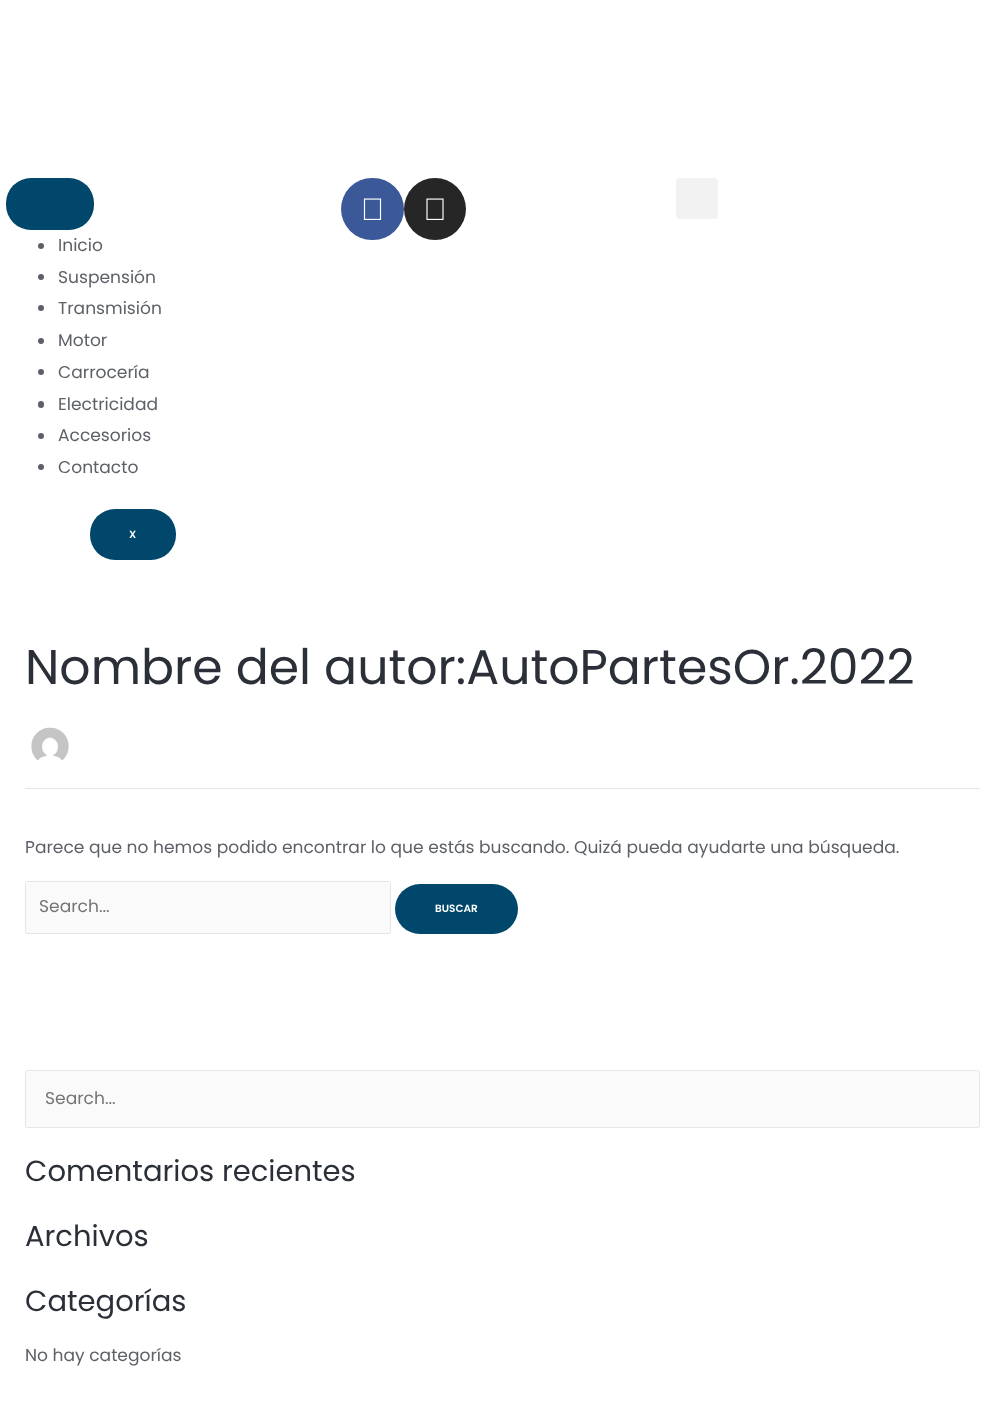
<!DOCTYPE html>
<meta charset="utf-8">
<style>body { margin: 0 } canvas { display: block }</style>
<canvas id="canvas" width="1005" height="1401"></canvas>
<img id="img1" src="img_01.png" hidden>
<img id="img2" src="img_02.png" hidden>
<img id="img3" src="img_03.png" hidden>
<script>
window.onload = function () {
	const canvas = document.getElementById("canvas");
	const ctx = canvas.getContext("2d");
	ctx.miterLimit = 4;
	ctx.fontKerning = "normal";
	function txt(s, x, y) {
		ctx.fillText(s, x, y);
	}
	function fill(x, y, w, h) {
		ctx.fillRect(x, y, w, h);
	}
	function round(x, y, w, h, r) {
		ctx.beginPath();
		ctx.roundRect(x, y, w, h, r);
		ctx.fill();
	}
	function img(id, x, y, w, h) {
		ctx.drawImage(document.getElementById(id), x, y, w, h);
	}

	ctx.fillStyle = "#FFFFFF";
	fill(0, 0, 1005, 1401);
	ctx.fillStyle = "#3B5998";
	round(341, 178, 63, 62, 31);
	img("img1", 363, 198, 19, 22);
	ctx.fillStyle = "#262626";
	ctx.beginPath();
	ctx.arc(435, 209, 31, 0, Math.PI * 2);
	ctx.fill();
	img("img2", 426, 198, 18, 22);
	ctx.fillStyle = "#F2F2F2";
	round(676, 178, 42, 41, 4);
	ctx.fillStyle = "#00476B";
	round(6, 178, 88, 52, 25);
	ctx.fillStyle = "#5D6167";
	ctx.beginPath();
	ctx.arc(41, 246, 3, 0, Math.PI * 2);
	ctx.fill();
	ctx.beginPath();
	ctx.arc(41, 277, 3, 0, Math.PI * 2);
	ctx.fill();
	ctx.beginPath();
	ctx.arc(41, 308, 3, 0, Math.PI * 2);
	ctx.fill();
	ctx.beginPath();
	ctx.arc(41, 341, 3, 0, Math.PI * 2);
	ctx.fill();
	ctx.beginPath();
	ctx.arc(41, 372, 3, 0, Math.PI * 2);
	ctx.fill();
	round(38, 401, 6, 7, 3);
	ctx.beginPath();
	ctx.arc(41, 436, 3, 0, Math.PI * 2);
	ctx.fill();
	ctx.beginPath();
	ctx.arc(41, 467, 3, 0, Math.PI * 2);
	ctx.fill();
	ctx.fillStyle = "#00476B";
	round(90, 509, 86, 51, 25);
	ctx.fillStyle = "#E5E5E5";
	fill(25, 788, 955, 1);
	img("img3", 31, 727, 38, 34);
	ctx.fillStyle = "#FAFAFA";
	ctx.beginPath();
	ctx.roundRect(25.5, 881.5, 365, 52, 2);
	ctx.fill();
	ctx.strokeStyle = "#E5E5E5";
	ctx.stroke();
	ctx.fillStyle = "#00476B";
	round(395, 884, 123, 50, 25);
	ctx.fillStyle = "#FAFAFA";
	ctx.beginPath();
	ctx.roundRect(25.5, 1070.5, 954, 57, 2);
	ctx.fill();
	ctx.stroke();
	ctx.font = "17.1px Poppins";
	ctx.fillStyle = "#5D6167";
	txt("Inicio", 58, 251);
	txt("Suspensión", 58, 283);
	txt("Transmisión", 58, 314);
	txt("Motor", 58, 346);
	txt("Carrocería", 58, 378);
	txt("Electricidad", 58, 410);
	txt("Accesorios", 58, 441);
	txt("Contacto", 58, 473);
	ctx.font = "600 10.5px Poppins";
	ctx.fillStyle = "#FFFFFF";
	txt("X", 129, 538);
	ctx.font = "48.9px Poppins";
	ctx.fillStyle = "#2B2F38";
	txt("Nombre del autor:AutoPartesOr.2022", 25, 684);
	ctx.font = "17.1px Poppins";
	ctx.fillStyle = "#5D6167";
	txt("Parece que no hemos podido encontrar lo que estás buscando. Quizá pueda ayudarte una búsqueda.", 25, 853);
	ctx.fillStyle = "#757575";
	txt("Search...", 39, 912);
	ctx.font = "600 10.5px Poppins";
	ctx.fillStyle = "#FFFFFF";
	txt("BUSCAR", 435, 912);
	ctx.font = "17.1px Poppins";
	ctx.fillStyle = "#757575";
	txt("Search...", 45, 1104);
	ctx.font = "29px Poppins";
	ctx.fillStyle = "#2B2F38";
	txt("Comentarios recientes", 25, 1181);
	txt("Archivos", 25, 1246);
	txt("Categorías", 25, 1311);
	ctx.font = "17.1px Poppins";
	ctx.fillStyle = "#5D6167";
	txt("No hay categorías", 25, 1361);
};
</script>
